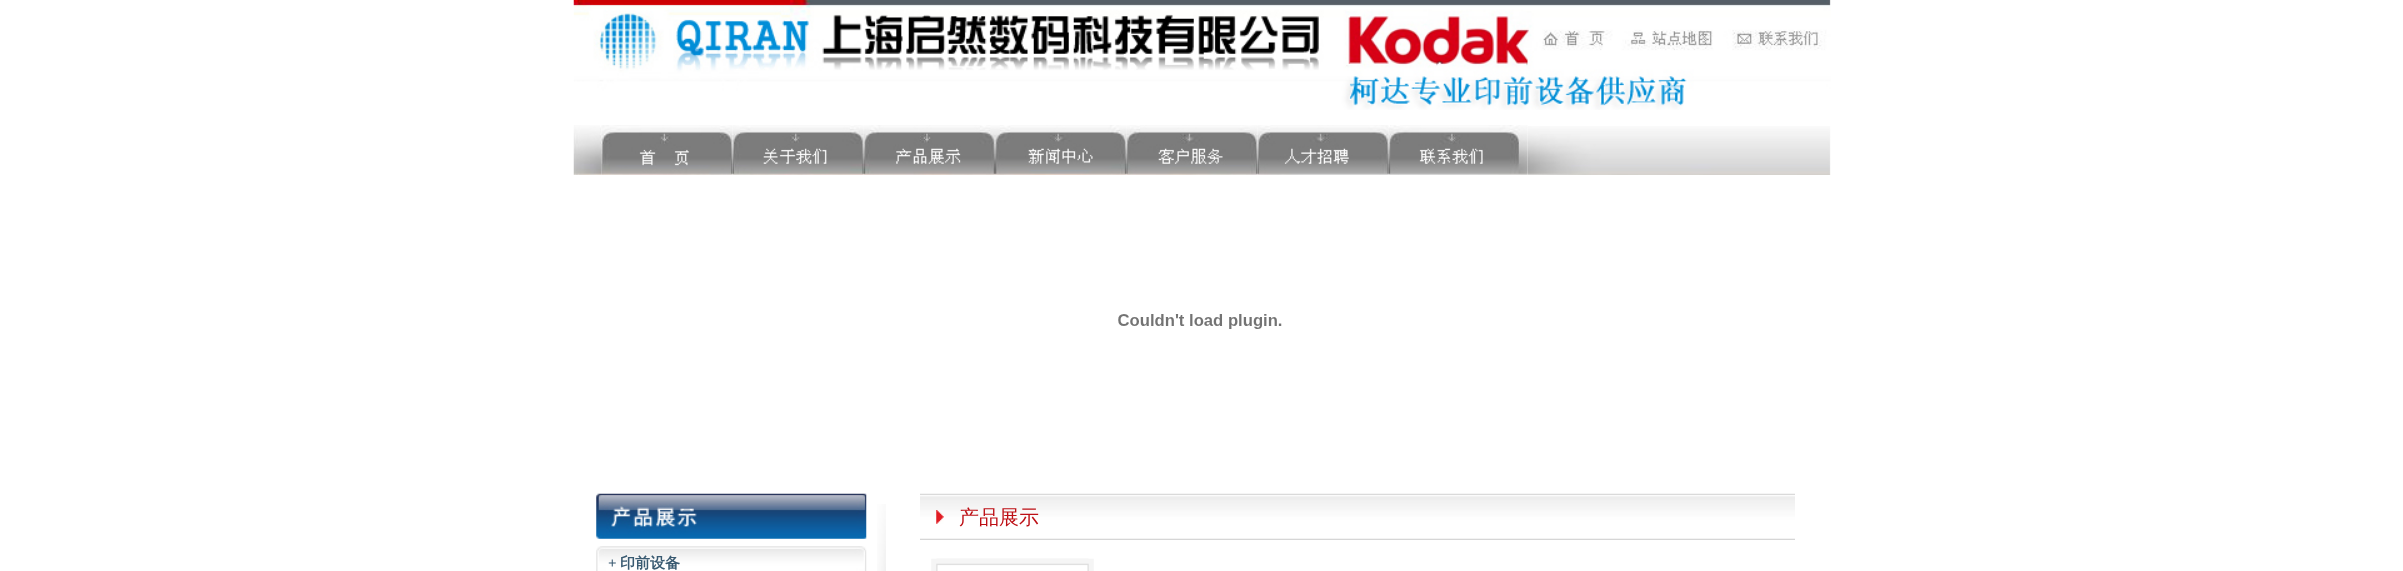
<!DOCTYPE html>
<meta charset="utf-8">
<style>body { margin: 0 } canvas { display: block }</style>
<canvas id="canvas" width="2403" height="571"></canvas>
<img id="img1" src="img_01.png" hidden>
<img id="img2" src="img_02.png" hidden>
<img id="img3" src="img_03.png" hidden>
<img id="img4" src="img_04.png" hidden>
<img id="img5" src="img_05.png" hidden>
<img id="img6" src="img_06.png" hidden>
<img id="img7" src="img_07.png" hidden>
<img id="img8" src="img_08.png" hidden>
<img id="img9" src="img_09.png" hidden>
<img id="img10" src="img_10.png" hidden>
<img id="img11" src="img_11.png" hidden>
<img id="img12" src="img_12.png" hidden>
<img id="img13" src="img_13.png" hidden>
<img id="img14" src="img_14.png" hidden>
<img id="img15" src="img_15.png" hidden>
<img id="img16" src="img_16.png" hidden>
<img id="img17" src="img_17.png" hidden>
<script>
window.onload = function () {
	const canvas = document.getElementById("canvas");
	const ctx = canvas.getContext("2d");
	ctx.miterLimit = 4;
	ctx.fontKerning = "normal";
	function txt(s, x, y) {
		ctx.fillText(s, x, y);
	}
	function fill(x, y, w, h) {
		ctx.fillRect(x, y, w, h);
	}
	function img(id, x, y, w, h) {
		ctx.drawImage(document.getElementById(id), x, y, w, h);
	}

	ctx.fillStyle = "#FFFFFF";
	fill(0, 0, 2403, 571);
	img("img1", 573, 0, 1258, 110);
	img("img2", 573, 125, 29, 50);
	img("img3", 601, 125, 132, 50);
	img("img4", 732, 125, 132, 50);
	img("img5", 863, 125, 132, 50);
	img("img6", 995, 125, 132, 50);
	img("img7", 1126, 125, 132, 50);
	img("img8", 1257, 125, 132, 50);
	img("img9", 1388, 125, 140, 50);
	img("img10", 1527, 126, 304, 49);
	img("img11", 1118, 314, 164, 15);
	img("img12", 920, 493, 875, 47);
	img("img13", 936, 510, 8, 14);
	img("img14", 931, 558, 163, 13);
	img("img15", 877, 504, 9, 67);
	img("img16", 596, 493, 271, 46);
	img("img17", 596, 546, 271, 25);
	ctx.font = "500 20px WenQuanYi Zen Hei";
	ctx.fillStyle = "#BD0F15";
	txt("产品展示", 959, 524);
	ctx.font = "bold 15px Liberation Serif";
	ctx.fillStyle = "#395A71";
	txt("+", 608, 568);
	ctx.font = "bold 15px WenQuanYi Zen Hei";
	txt("印前设备", 620, 568);
};
</script>
